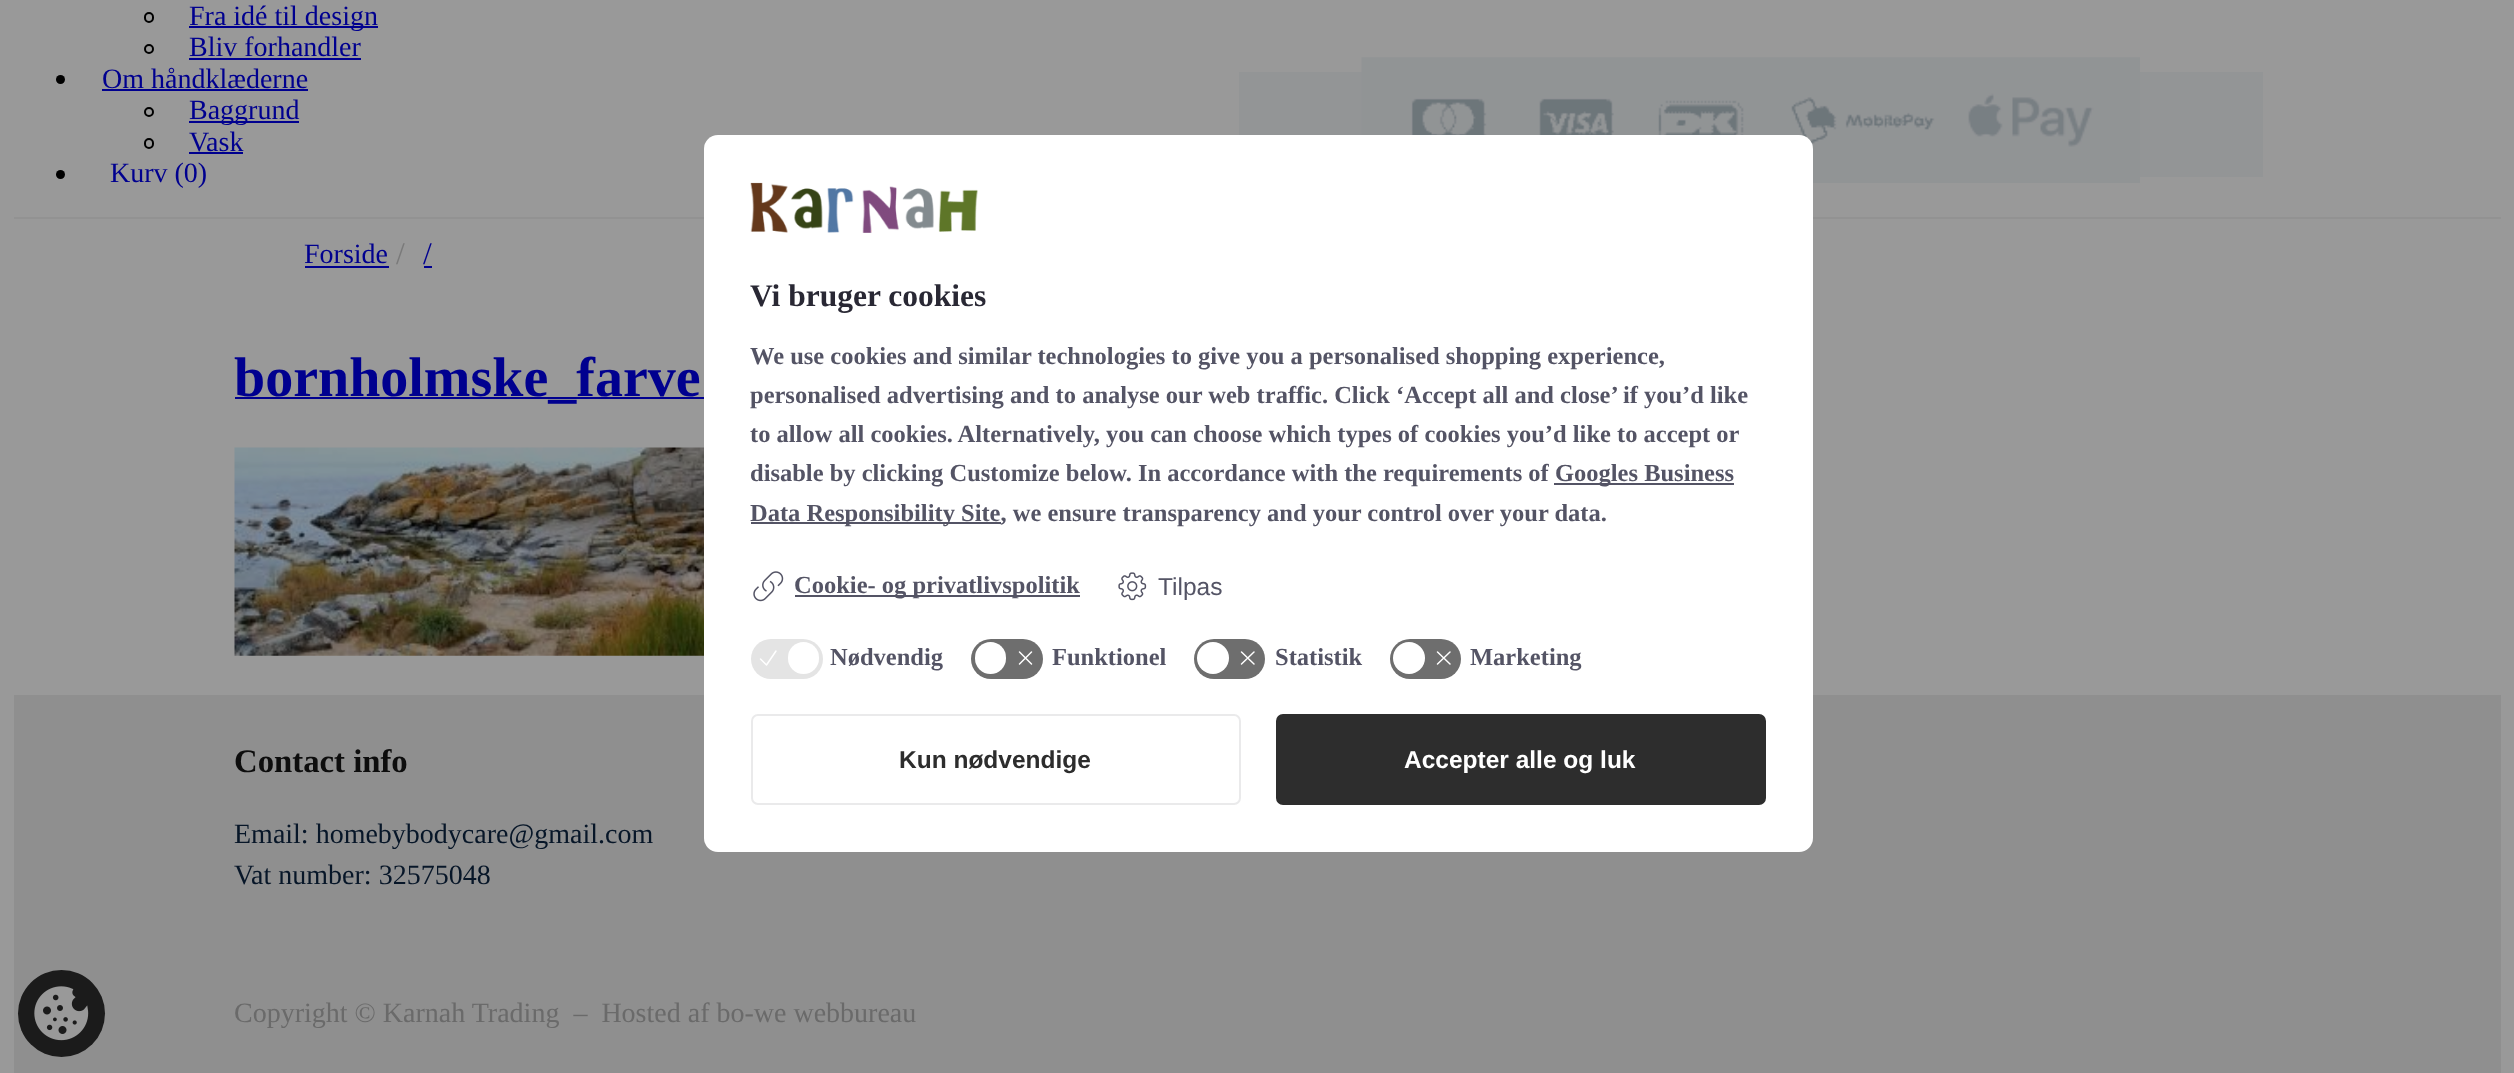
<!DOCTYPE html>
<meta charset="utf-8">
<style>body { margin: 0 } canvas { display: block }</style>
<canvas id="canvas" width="2514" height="1073"></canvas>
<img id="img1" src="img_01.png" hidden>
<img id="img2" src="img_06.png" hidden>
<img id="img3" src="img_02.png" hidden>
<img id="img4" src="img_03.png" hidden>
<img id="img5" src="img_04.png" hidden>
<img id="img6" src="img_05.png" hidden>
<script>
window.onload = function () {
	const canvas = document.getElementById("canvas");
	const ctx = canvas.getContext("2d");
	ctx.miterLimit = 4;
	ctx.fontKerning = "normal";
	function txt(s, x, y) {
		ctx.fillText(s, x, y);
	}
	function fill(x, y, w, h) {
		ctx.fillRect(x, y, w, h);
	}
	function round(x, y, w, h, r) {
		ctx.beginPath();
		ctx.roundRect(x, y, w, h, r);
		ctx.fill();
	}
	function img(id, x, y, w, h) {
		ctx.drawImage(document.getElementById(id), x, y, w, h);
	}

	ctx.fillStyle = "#999999";
	fill(0, 0, 2514, 1073);
	ctx.fillStyle = "#929292";
	fill(14, 217, 2487, 2);
	ctx.beginPath();
	ctx.roundRect(145, 13, 8, 9, 4);
	ctx.strokeStyle = "#000000";
	ctx.lineWidth = 2;
	ctx.stroke();
	ctx.fillStyle = "#00008F";
	fill(189, 26, 189, 2);
	ctx.beginPath();
	ctx.arc(149, 49, 4, 0, Math.PI * 2);
	ctx.stroke();
	fill(189, 58, 172, 2);
	ctx.fillStyle = "#000000";
	ctx.beginPath();
	ctx.arc(60.5, 79.5, 4.5, 0, Math.PI * 2);
	ctx.fill();
	ctx.fillStyle = "#00008F";
	fill(102, 89, 206, 2);
	ctx.beginPath();
	ctx.arc(149, 112, 4, 0, Math.PI * 2);
	ctx.stroke();
	fill(189, 121, 110, 2);
	ctx.beginPath();
	ctx.roundRect(145, 139, 8, 9, 4);
	ctx.stroke();
	fill(189, 152, 54, 2);
	ctx.fillStyle = "#000000";
	ctx.beginPath();
	ctx.arc(60.5, 174.5, 4.5, 0, Math.PI * 2);
	ctx.fill();
	ctx.fillStyle = "#00008F";
	fill(305, 266, 84, 2);
	fill(424, 266, 8, 2);
	fill(235, 397, 469, 2);
	img("img1", 234, 447, 470, 209);
	ctx.fillStyle = "#939596";
	fill(1239, 72, 1024, 105);
	img("img2", 1361, 57, 779, 126);
	ctx.fillStyle = "#8F8F8F";
	fill(14, 695, 2487, 378);
	ctx.fillStyle = "#FFFFFF";
	round(704, 135, 1109, 717, 14);
	img("img3", 750, 182, 228, 51);
	ctx.fillStyle = "#545465";
	fill(1554, 483, 180, 2);
	fill(751, 522, 250, 2);
	img("img4", 753, 571, 31, 31);
	fill(795, 595, 285, 2);
	img("img5", 1118, 572, 29, 29);
	ctx.fillStyle = "#E4E4E4";
	round(751, 639, 72, 40, 20);
	ctx.beginPath();
	ctx.moveTo(760.5, 659);
	ctx.lineTo(766.5, 665);
	ctx.lineTo(776, 651);
	ctx.strokeStyle = "#FFFFFF";
	ctx.lineWidth = 1.5;
	ctx.lineCap = "round";
	ctx.lineJoin = "round";
	ctx.stroke();
	ctx.fillStyle = "#FFFFFF";
	round(788, 642, 31, 32, 15.5);
	ctx.fillStyle = "#6E6E6E";
	round(971, 639, 72, 40, 20);
	ctx.fillStyle = "#FFFFFF";
	round(975, 642, 31, 32, 15.5);
	ctx.beginPath();
	ctx.moveTo(1019.5, 664);
	ctx.lineTo(1031.5, 652);
	ctx.moveTo(1019.5, 652);
	ctx.lineTo(1031.5, 664);
	ctx.stroke();
	ctx.fillStyle = "#6E6E6E";
	round(1194, 639, 71, 40, 20);
	ctx.fillStyle = "#FFFFFF";
	ctx.beginPath();
	ctx.arc(1213, 658, 16, 0, Math.PI * 2);
	ctx.fill();
	ctx.beginPath();
	ctx.moveTo(1241.5, 664);
	ctx.lineTo(1254, 652);
	ctx.moveTo(1241.5, 652);
	ctx.lineTo(1254, 664);
	ctx.stroke();
	ctx.fillStyle = "#6E6E6E";
	round(1390, 639, 71, 40, 20);
	ctx.fillStyle = "#FFFFFF";
	ctx.beginPath();
	ctx.arc(1409, 658, 16, 0, Math.PI * 2);
	ctx.fill();
	ctx.beginPath();
	ctx.moveTo(1437.5, 664);
	ctx.lineTo(1450, 652);
	ctx.moveTo(1437.5, 652);
	ctx.lineTo(1450, 664);
	ctx.stroke();
	ctx.beginPath();
	ctx.roundRect(752, 715, 488, 89, 6);
	ctx.strokeStyle = "#EAEAEB";
	ctx.lineWidth = 2;
	ctx.lineJoin = "miter";
	ctx.stroke();
	ctx.fillStyle = "#2D2D2D";
	ctx.beginPath();
	ctx.roundRect(1277, 715, 488, 89, 6);
	ctx.fill();
	ctx.strokeStyle = "#2D2D2D";
	ctx.stroke();
	ctx.fillStyle = "#1B1B1B";
	ctx.beginPath();
	ctx.arc(61.5, 1013.5, 43.5, 0, Math.PI * 2);
	ctx.fill();
	img("img6", 34, 986, 55, 55);
	ctx.font = "28px Liberation Serif";
	ctx.fillStyle = "#00008F";
	txt("Fra idé til design", 189, 25);
	txt("Bliv forhandler", 189, 56);
	txt("Om håndklæderne", 102, 88);
	txt("Baggrund", 189, 119);
	txt("Vask", 189, 151);
	txt("Kurv (0)", 110, 182);
	txt("Forside", 304, 263);
	ctx.font = "31.5px Liberation Serif";
	ctx.fillStyle = "#7A7A7A";
	txt("/", 396, 264);
	ctx.fillStyle = "#00008F";
	txt("/", 423, 264);
	ctx.font = "bold 56px Liberation Serif";
	txt("bornholmske_farve", 234, 396);
	ctx.font = "bold 31.5px Liberation Serif";
	ctx.fillStyle = "#292834";
	txt("Vi bruger cookies", 750, 306);
	ctx.font = "bold 24.5px Liberation Serif";
	ctx.fillStyle = "#545465";
	txt("We use cookies and similar technologies to give you a personalised shopping experience,", 750, 364);
	txt("personalised advertising and to analyse our web traffic. Click ‘Accept all and close’ if you’d like", 750, 403);
	txt("to allow all cookies. Alternatively, you can choose which types of cookies you’d like to accept or", 750, 442);
	txt("disable by clicking Customize below. In accordance with the requirements of", 750, 481);
	txt("Googles Business", 1555, 481);
	txt("Data Responsibility Site, we ensure transparency and your control over your data.", 750, 521);
	txt("Cookie- og privatlivspolitik", 794, 593);
	ctx.font = "24.5px Liberation Sans";
	txt("Tilpas", 1158, 595);
	ctx.font = "bold 24.5px Liberation Serif";
	txt("Nødvendig", 830, 665);
	txt("Funktionel", 1052, 665);
	txt("Statistik", 1275, 665);
	txt("Marketing", 1470, 665);
	ctx.font = "bold 24.5px Liberation Sans";
	ctx.fillStyle = "#2D2D2D";
	txt("Kun nødvendige", 899, 768);
	ctx.fillStyle = "#FFFFFF";
	txt("Accepter alle og luk", 1404, 768);
	ctx.font = "bold 32.75px Liberation Serif";
	ctx.fillStyle = "#0D0D0D";
	txt("Contact info", 234, 772);
	ctx.font = "28px Liberation Serif";
	ctx.fillStyle = "#071628";
	txt("Email: homebybodycare@gmail.com", 234, 843);
	txt("Vat number: 32575048", 234, 884);
	ctx.fillStyle = "#6A6A6A";
	txt("Copyright © Karnah Trading  –  Hosted af bo-we webbureau", 234, 1022);
};
</script>
